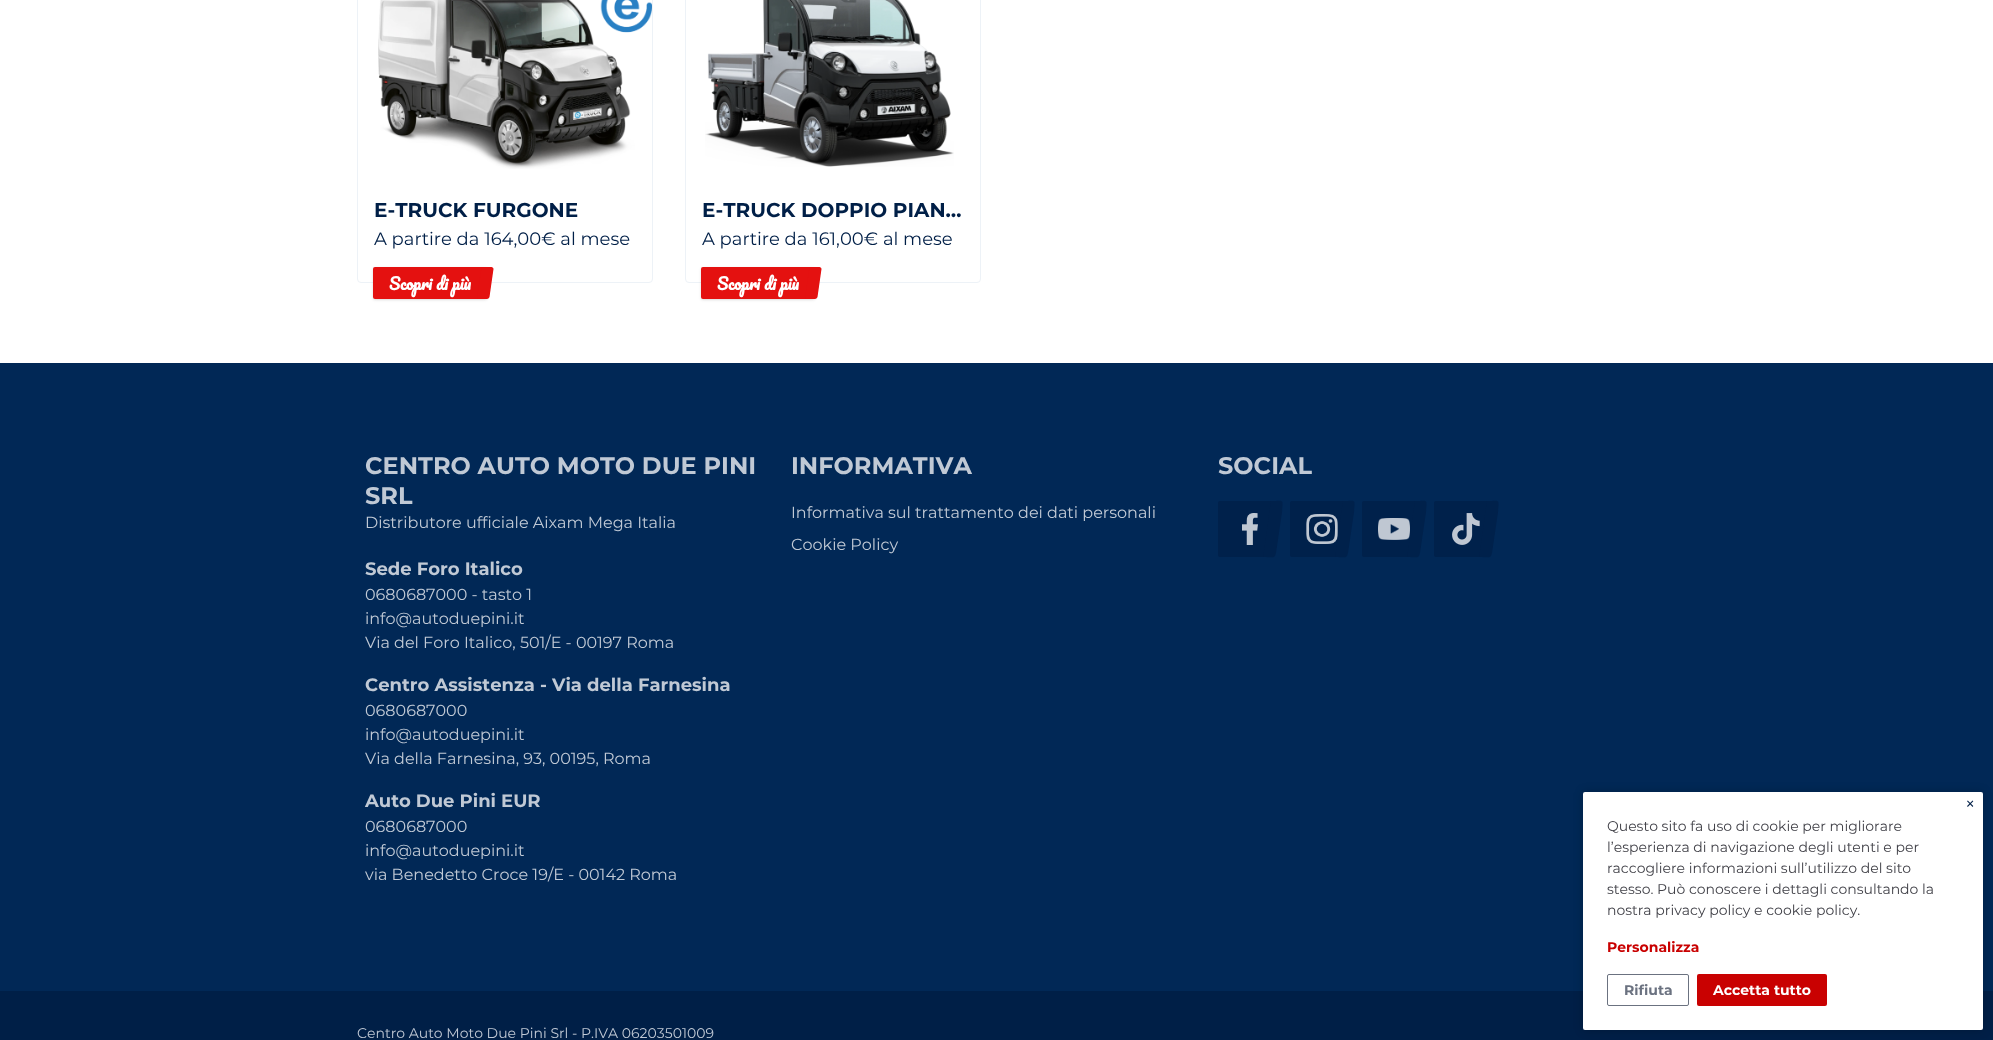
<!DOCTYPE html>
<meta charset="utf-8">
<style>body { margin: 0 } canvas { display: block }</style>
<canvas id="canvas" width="1993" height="1040"></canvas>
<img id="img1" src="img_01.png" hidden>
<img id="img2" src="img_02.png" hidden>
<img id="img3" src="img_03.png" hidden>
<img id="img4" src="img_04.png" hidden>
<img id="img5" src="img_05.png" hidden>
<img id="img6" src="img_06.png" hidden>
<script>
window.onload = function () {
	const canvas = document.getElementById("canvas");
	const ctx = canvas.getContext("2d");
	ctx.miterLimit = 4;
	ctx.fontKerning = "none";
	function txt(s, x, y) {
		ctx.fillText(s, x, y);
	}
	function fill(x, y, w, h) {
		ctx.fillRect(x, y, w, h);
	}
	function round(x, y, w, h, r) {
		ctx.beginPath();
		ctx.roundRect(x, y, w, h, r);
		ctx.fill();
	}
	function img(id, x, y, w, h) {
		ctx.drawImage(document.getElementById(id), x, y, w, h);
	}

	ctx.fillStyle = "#FFFFFF";
	fill(0, 0, 1993, 1040);
	ctx.beginPath();
	ctx.roundRect(357.5, -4.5, 295, 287, 3.5);
	ctx.strokeStyle = "#EDF2F7";
	ctx.stroke();
	img("img1", 378, 0, 274, 169);
	ctx.fillStyle = "rgba(0, 0, 0, 0.1)";
	ctx.filter = "blur(1px)";
	ctx.beginPath();
	ctx.roundRect(374, 269, 112, 30, 1);
	ctx.fill();
	ctx.filter = "none";
	ctx.filter = "blur(1.5px)";
	ctx.beginPath();
	ctx.roundRect(373, 268, 114, 32, 2);
	ctx.fill();
	ctx.filter = "none";
	ctx.fillStyle = "#E41110";
	round(373, 267, 114, 32, 2);
	ctx.beginPath();
	ctx.moveTo(481.5, 267);
	ctx.lineTo(491.5, 267);
	ctx.bezierCurveTo(492.5, 267, 493.5, 268, 493.5, 269);
	ctx.lineTo(489.5, 297);
	ctx.bezierCurveTo(489, 298, 488, 299, 487, 299);
	ctx.lineTo(477, 299);
	ctx.closePath();
	ctx.fill();
	ctx.beginPath();
	ctx.roundRect(685.5, -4.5, 295, 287, 3.5);
	ctx.stroke();
	img("img2", 705, 0, 249, 167);
	ctx.fillStyle = "rgba(0, 0, 0, 0.1)";
	ctx.filter = "blur(1px)";
	ctx.beginPath();
	ctx.roundRect(702, 269, 112, 30, 1);
	ctx.fill();
	ctx.filter = "none";
	ctx.filter = "blur(1.5px)";
	ctx.beginPath();
	ctx.roundRect(701, 268, 114, 32, 2);
	ctx.fill();
	ctx.filter = "none";
	ctx.fillStyle = "#E41110";
	round(701, 267, 114, 32, 2);
	ctx.beginPath();
	ctx.moveTo(809.5, 267);
	ctx.lineTo(819.5, 267);
	ctx.bezierCurveTo(820.5, 267, 821.5, 268, 821.5, 269);
	ctx.lineTo(817.5, 297);
	ctx.bezierCurveTo(817, 298, 816, 299, 815, 299);
	ctx.lineTo(805, 299);
	ctx.closePath();
	ctx.fill();
	ctx.fillStyle = "#012856";
	fill(0, 363, 1993, 628);
	ctx.fillStyle = "#00214B";
	round(1218, 501, 56, 56, 2);
	img("img3", 1242, 513, 16, 32);
	ctx.beginPath();
	ctx.moveTo(1271, 501);
	ctx.bezierCurveTo(1284, 501, 1283, 498, 1282, 512);
	ctx.lineTo(1277, 546);
	ctx.bezierCurveTo(1275, 560, 1276, 557, 1263, 557);
	ctx.closePath();
	ctx.fill();
	round(1290, 501, 56, 56, 2);
	img("img4", 1306, 514, 32, 30);
	ctx.beginPath();
	ctx.moveTo(1343, 501);
	ctx.bezierCurveTo(1356, 501, 1355, 498, 1354, 512);
	ctx.lineTo(1349, 546);
	ctx.bezierCurveTo(1347, 560, 1348, 557, 1335, 557);
	ctx.closePath();
	ctx.fill();
	round(1362, 501, 56, 56, 2);
	img("img5", 1378, 518, 32, 22);
	ctx.beginPath();
	ctx.moveTo(1415, 501);
	ctx.bezierCurveTo(1428, 501, 1427, 498, 1426, 512);
	ctx.lineTo(1421, 546);
	ctx.bezierCurveTo(1419, 560, 1420, 557, 1407, 557);
	ctx.closePath();
	ctx.fill();
	round(1434, 501, 56, 56, 2);
	img("img6", 1452, 513, 28, 32);
	ctx.beginPath();
	ctx.moveTo(1487, 501);
	ctx.bezierCurveTo(1500, 501, 1499, 498, 1498, 512);
	ctx.lineTo(1493, 546);
	ctx.bezierCurveTo(1491, 560, 1492, 557, 1479, 557);
	ctx.closePath();
	ctx.fill();
	ctx.fillStyle = "#001F47";
	fill(0, 991, 1993, 49);
	ctx.fillStyle = "rgba(0, 0, 0, 0.2)";
	ctx.filter = "blur(5px)";
	ctx.beginPath();
	ctx.roundRect(1583, 792, 400, 238, 2);
	ctx.fill();
	ctx.filter = "none";
	ctx.fillStyle = "#FFFFFF";
	round(1583, 792, 400, 238, 2);
	ctx.beginPath();
	ctx.roundRect(1607.5, 974.5, 81, 31, 1.5);
	ctx.strokeStyle = "#6B7280";
	ctx.stroke();
	ctx.fillStyle = "#C90101";
	round(1697, 974, 130, 32, 2);
	ctx.font = "100 20px 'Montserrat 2'";
	ctx.fillStyle = "#001F47";
	txt("E-TRUCK FURGONE", 374, 217);
	ctx.font = "100 18px Montserrat";
	txt("A partire da 164,00€ al mese", 374, 245);
	ctx.font = "bold 16px Pacifico";
	ctx.fillStyle = "#FFFFFF";
	txt("Scopri di più", 389, 290);
	ctx.font = "100 20px 'Montserrat 2'";
	ctx.fillStyle = "#001F47";
	txt("E-TRUCK DOPPIO PIAN…", 702, 217);
	ctx.font = "100 18px Montserrat";
	txt("A partire da 161,00€ al mese", 702, 245);
	ctx.font = "bold 16px Pacifico";
	ctx.fillStyle = "#FFFFFF";
	txt("Scopri di più", 717, 290);
	ctx.font = "100 24px 'Montserrat 2'";
	ctx.fillStyle = "#C0C9D5";
	txt("CENTRO AUTO MOTO DUE PINI", 365, 474);
	txt("SRL", 365, 504);
	ctx.font = "100 16px Montserrat";
	txt("Distributore ufficiale Aixam Mega Italia", 365, 528);
	ctx.font = "100 18px 'Montserrat 2'";
	txt("Sede Foro Italico", 365, 575);
	ctx.font = "100 16px Montserrat";
	txt("0680687000 - tasto 1", 365, 600);
	txt("info@autoduepini.it", 365, 624);
	txt("Via del Foro Italico, 501/E - 00197 Roma", 365, 648);
	ctx.font = "100 18px 'Montserrat 2'";
	txt("Centro Assistenza - Via della Farnesina", 365, 691);
	ctx.font = "100 16px Montserrat";
	txt("0680687000", 365, 716);
	txt("info@autoduepini.it", 365, 740);
	txt("Via della Farnesina, 93, 00195, Roma", 365, 764);
	ctx.font = "100 18px 'Montserrat 2'";
	txt("Auto Due Pini EUR", 365, 807);
	ctx.font = "100 16px Montserrat";
	txt("0680687000", 365, 832);
	txt("info@autoduepini.it", 365, 856);
	txt("via Benedetto Croce 19/E - 00142 Roma", 365, 880);
	ctx.font = "100 24px 'Montserrat 2'";
	txt("INFORMATIVA", 791, 474);
	ctx.font = "100 16px Montserrat";
	txt("Informativa sul trattamento dei dati personali", 791, 518);
	txt("Cookie Policy", 791, 550);
	ctx.font = "100 24px 'Montserrat 2'";
	txt("SOCIAL", 1218, 474);
	ctx.font = "100 14px Montserrat";
	txt("Centro Auto Moto Due Pini Srl - P.IVA 06203501009", 357, 1038);
	ctx.font = "100 18px Montserrat";
	ctx.fillStyle = "#001F47";
	txt("×", 1965, 810);
	ctx.font = "100 14px Montserrat";
	ctx.fillStyle = "#3F3F46";
	txt("Questo sito fa uso di cookie per migliorare", 1607, 831);
	txt("l’esperienza di navigazione degli utenti e per", 1607, 852);
	txt("raccogliere informazioni sull’utilizzo del sito", 1607, 873);
	txt("stesso. Può conoscere i dettagli consultando la", 1607, 894);
	txt("nostra privacy policy e cookie policy.", 1607, 915);
	ctx.font = "100 14px 'Montserrat 2'";
	ctx.fillStyle = "#C90101";
	txt("Personalizza", 1607, 952);
	ctx.fillStyle = "#6B7280";
	txt("Rifiuta", 1624, 995);
	ctx.fillStyle = "#FFFFFF";
	txt("Accetta tutto", 1713, 995);
};
</script>
